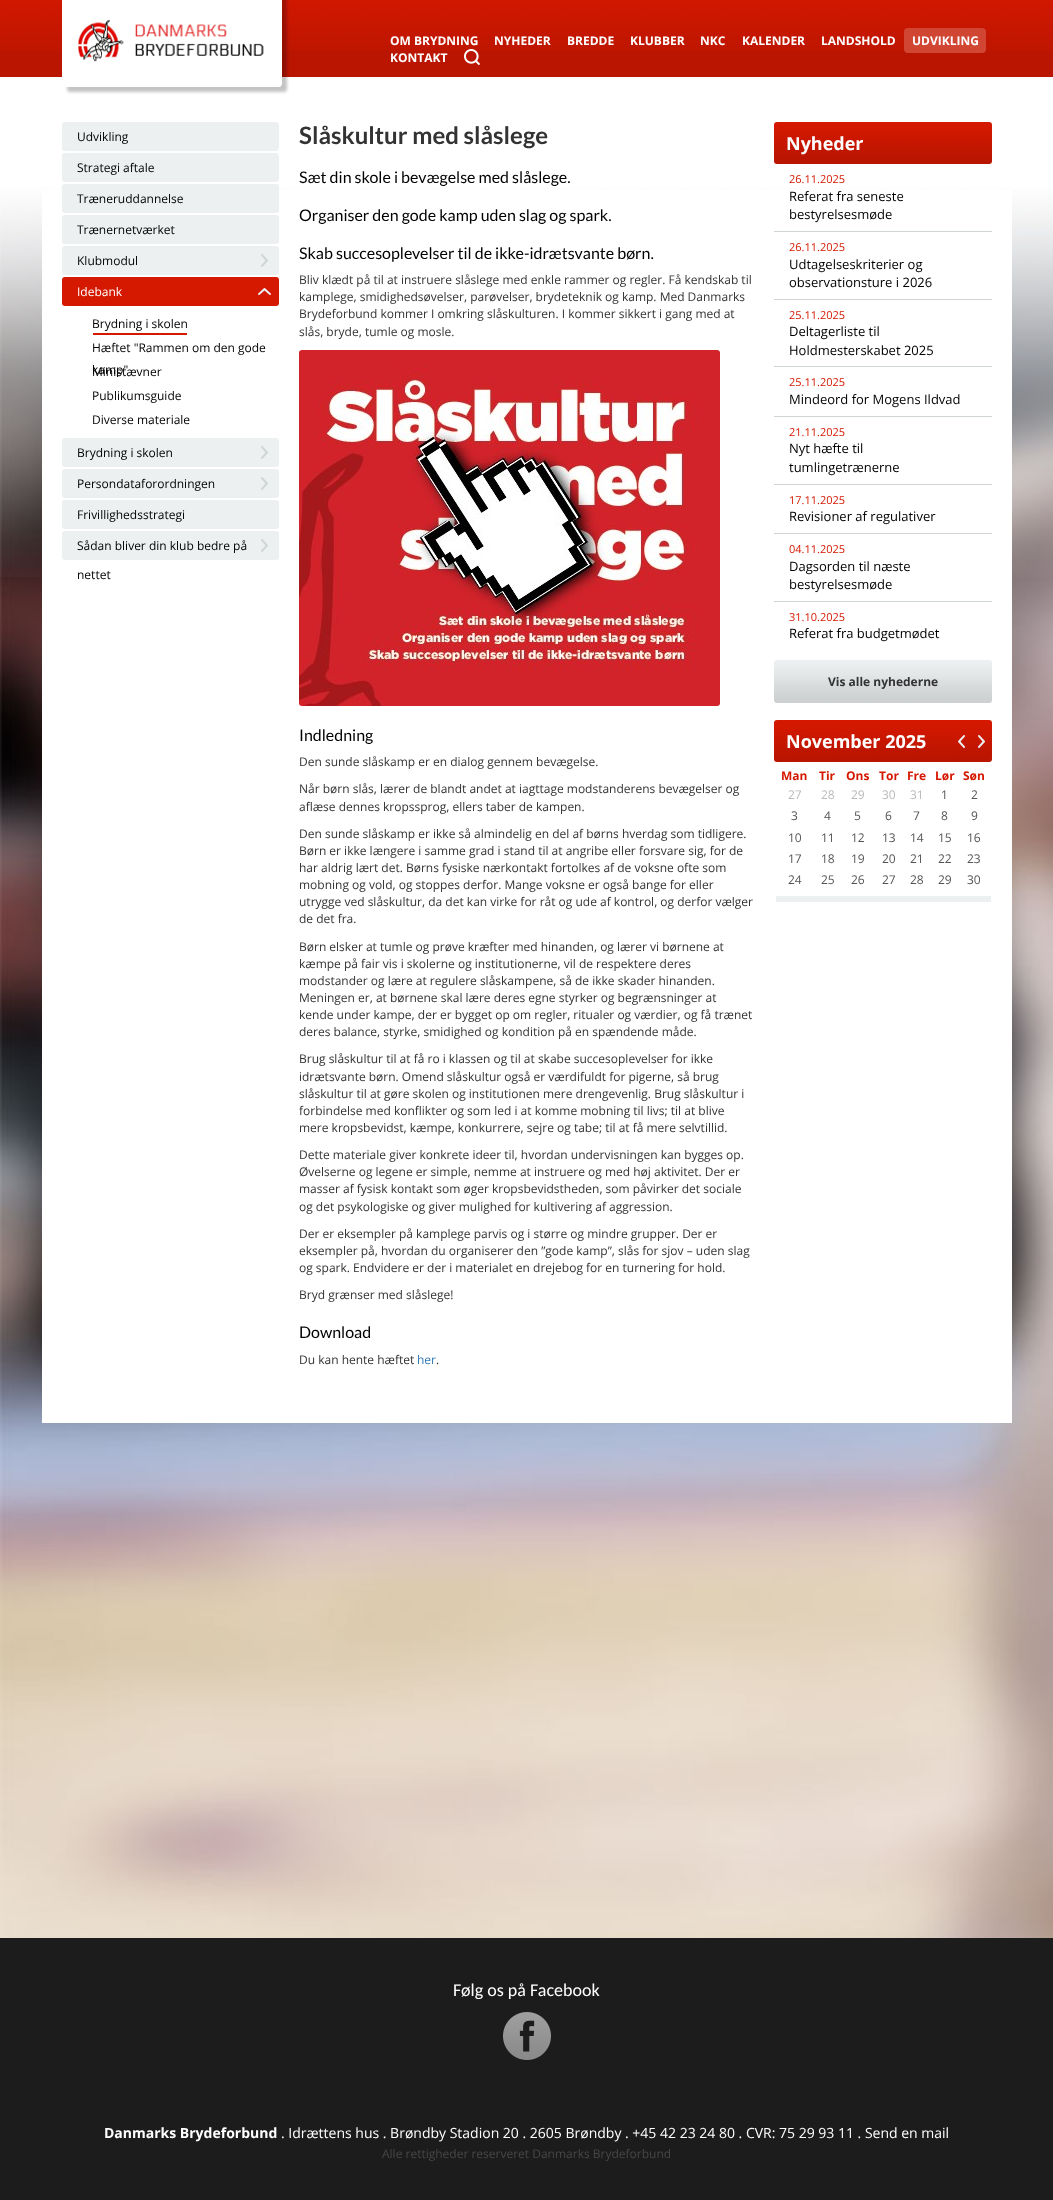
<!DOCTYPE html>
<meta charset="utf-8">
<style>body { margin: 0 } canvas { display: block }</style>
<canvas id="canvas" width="1053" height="2200"></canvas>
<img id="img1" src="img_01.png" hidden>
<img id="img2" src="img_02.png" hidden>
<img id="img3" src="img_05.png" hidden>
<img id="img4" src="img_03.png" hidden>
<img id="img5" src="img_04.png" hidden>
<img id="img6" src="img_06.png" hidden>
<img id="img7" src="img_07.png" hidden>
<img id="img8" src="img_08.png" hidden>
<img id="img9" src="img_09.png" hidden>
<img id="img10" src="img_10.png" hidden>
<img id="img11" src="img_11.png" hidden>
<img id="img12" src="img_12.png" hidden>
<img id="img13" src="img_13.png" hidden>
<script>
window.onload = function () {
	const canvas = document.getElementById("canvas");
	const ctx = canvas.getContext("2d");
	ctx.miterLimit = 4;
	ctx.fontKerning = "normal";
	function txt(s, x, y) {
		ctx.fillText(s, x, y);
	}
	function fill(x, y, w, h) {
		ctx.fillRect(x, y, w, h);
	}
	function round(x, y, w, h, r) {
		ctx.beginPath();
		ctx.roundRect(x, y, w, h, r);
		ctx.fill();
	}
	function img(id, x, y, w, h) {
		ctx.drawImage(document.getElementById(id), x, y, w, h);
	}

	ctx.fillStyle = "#FFFFFF";
	fill(0, 0, 1053, 2200);
	img("img1", 0, 187, 1053, 1751);
	ctx.fillStyle = "#BA1500";
	fill(0, 51, 1053, 26);
	img("img2", 0, 0, 1053, 51);
	img("img3", 0, 77, 1053, 500);
	ctx.fillStyle = "rgba(0, 0, 0, 0.23)";
	ctx.filter = "blur(1.5px)";
	ctx.beginPath();
	ctx.roundRect(67, -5, 220, 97, 3);
	ctx.fill();
	ctx.filter = "none";
	ctx.fillStyle = "#FFFFFF";
	ctx.beginPath();
	ctx.moveTo(62, -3);
	ctx.lineTo(282, -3);
	ctx.lineTo(282, 84);
	ctx.bezierCurveTo(282, 85.5, 280.5, 87, 279, 87);
	ctx.lineTo(65, 87);
	ctx.bezierCurveTo(63.5, 87, 62, 85.5, 62, 84);
	ctx.closePath();
	ctx.fill();
	img("img4", 78, 20, 186, 42);
	ctx.fillStyle = "#D14533";
	round(904, 28, 82, 25, 4);
	img("img5", 464, 49, 16, 16);
	ctx.fillStyle = "#FFFFFF";
	fill(42, 190, 970, 1233);
	ctx.fillStyle = "#ECF0F1";
	round(62, 122, 217, 29, 3);
	round(62, 153, 217, 29, 3);
	round(62, 184, 217, 29, 3);
	round(62, 215, 217, 29, 3);
	round(62, 246, 217, 29, 3);
	img("img6", 261, 254, 7, 13);
	ctx.fillStyle = "#D51800";
	round(62, 277, 217, 29, 3);
	img("img7", 258, 288, 13, 7);
	fill(93, 333, 94, 2);
	ctx.fillStyle = "#ECF0F1";
	round(62, 438, 217, 29, 3);
	img("img6", 261, 446, 7, 13);
	round(62, 469, 217, 29, 3);
	img("img6", 261, 477, 7, 13);
	round(62, 500, 217, 29, 3);
	round(62, 531, 217, 29, 3);
	img("img6", 261, 539, 7, 13);
	img("img8", 299, 350, 421, 356);
	img("img9", 774, 122, 218, 42);
	ctx.fillStyle = "#CFD5D7";
	fill(774, 231, 218, 1);
	fill(774, 299, 218, 1);
	fill(774, 366, 218, 1);
	fill(774, 416, 218, 1);
	fill(774, 484, 218, 1);
	fill(774, 533, 218, 1);
	fill(774, 601, 218, 1);
	img("img10", 774, 660, 218, 43);
	ctx.fillStyle = "#ECF0F1";
	fill(776, 896, 215, 6);
	img("img9", 774, 720, 218, 42);
	img("img11", 958, 735, 7, 13);
	img("img12", 978, 735, 7, 13);
	ctx.fillStyle = "#1C1C1C";
	fill(0, 1938, 1053, 262);
	img("img13", 503, 2012, 48, 48);
	ctx.font = "bold 12px Open Sans";
	ctx.fillStyle = "#FFFFFF";
	txt("OM BRYDNING", 390, 45);
	txt("NYHEDER", 494, 45);
	txt("BREDDE", 567, 45);
	txt("KLUBBER", 630, 45);
	txt("NKC", 700, 45);
	txt("KALENDER", 742, 45);
	txt("LANDSHOLD", 821, 45);
	txt("UDVIKLING", 912, 45);
	txt("KONTAKT", 390, 62);
	ctx.font = "12px Open Sans";
	ctx.fillStyle = "#000000";
	txt("Udvikling", 77, 141);
	txt("Strategi aftale", 77, 172);
	txt("Træneruddannelse", 77, 203);
	txt("Trænernetværket", 77, 234);
	txt("Klubmodul", 77, 265);
	ctx.fillStyle = "#FFFFFF";
	txt("Idebank", 77, 296);
	ctx.fillStyle = "#000000";
	txt("Brydning i skolen", 92, 328);
	txt("Hæftet \"Rammen om den gode", 92, 352);
	txt("kamp\"", 92, 374);
	txt("Ministævner", 92, 376);
	txt("Publikumsguide", 92, 400);
	txt("Diverse materiale", 92, 424);
	txt("Brydning i skolen", 77, 457);
	txt("Persondataforordningen", 77, 488);
	txt("Frivillighedsstrategi", 77, 519);
	txt("Sådan bliver din klub bedre på", 77, 550);
	txt("nettet", 77, 579);
	ctx.font = "bold 24px Lato";
	ctx.fillStyle = "#333333";
	txt("Slåskultur med slåslege", 299, 144);
	ctx.font = "16px Lato";
	ctx.fillStyle = "#000000";
	txt("Sæt din skole i bevægelse med slåslege.", 299, 183);
	txt("Organiser den gode kamp uden slag og spark.", 299, 221);
	txt("Skab succesoplevelser til de ikke-idrætsvante børn.", 299, 259);
	ctx.font = "12px Open Sans";
	ctx.fillStyle = "#333333";
	txt("Bliv klædt på til at instruere slåslege med enkle rammer og regler. Få kendskab til", 299, 284);
	txt("kamplege, smidighedsøvelser, parøvelser, brydeteknik og kamp. Med Danmarks", 299, 301);
	txt("Brydeforbund kommer I omkring slåskulturen. I kommer sikkert i gang med at", 299, 318);
	txt("slås, bryde, tumle og mosle.", 299, 336);
	ctx.font = "16px Lato";
	ctx.fillStyle = "#000000";
	txt("Indledning", 299, 741);
	ctx.font = "12px Open Sans";
	ctx.fillStyle = "#333333";
	txt("Den sunde slåskamp er en dialog gennem bevægelse.", 299, 766);
	txt("Når børn slås, lærer de blandt andet at iagttage modstanderens bevægelser og", 299, 793);
	txt("aflæse dennes kropssprog, ellers taber de kampen.", 299, 811);
	txt("Den sunde slåskamp er ikke så almindelig en del af børns hverdag som tidligere.", 299, 838);
	txt("Børn er ikke længere i samme grad i stand til at angribe eller forsvare sig, for de", 299, 855);
	txt("har aldrig lært det. Børns fysiske nærkontakt fortolkes af de voksne ofte som", 299, 872);
	txt("mobning og vold, og stoppes derfor. Mange voksne er også bange for eller", 299, 889);
	txt("utrygge ved slåskultur, da det kan virke for råt og ude af kontrol, og derfor vælger", 299, 906);
	txt("de det fra.", 299, 923);
	txt("Børn elsker at tumle og prøve kræfter med hinanden, og lærer vi børnene at", 299, 951);
	txt("kæmpe på fair vis i skolerne og institutionerne, vil de respektere deres", 299, 968);
	txt("modstander og lære at regulere slåskampene, så de ikke skader hinanden.", 299, 985);
	txt("Meningen er, at børnene skal lære deres egne styrker og begrænsninger at", 299, 1002);
	txt("kende under kampe, der er bygget op om regler, ritualer og værdier, og få trænet", 299, 1019);
	txt("deres balance, styrke, smidighed og kondition på en spændende måde.", 299, 1036);
	txt("Brug slåskultur til at få ro i klassen og til at skabe succesoplevelser for ikke", 299, 1063);
	txt("idrætsvante børn. Omend slåskultur også er værdifuldt for pigerne, så brug", 299, 1081);
	txt("slåskultur til at gøre skolen og institutionen mere drengevenlig. Brug slåskultur i", 299, 1098);
	txt("forbindelse med konflikter og som led i at komme mobning til livs; til at blive", 299, 1115);
	txt("mere kropsbevidst, kæmpe, konkurrere, sejre og tabe; til at få mere selvtillid.", 299, 1132);
	txt("Dette materiale giver konkrete ideer til, hvordan undervisningen kan bygges op.", 299, 1159);
	txt("Øvelserne og legene er simple, nemme at instruere og med høj aktivitet. Der er", 299, 1176);
	txt("masser af fysisk kontakt som øger kropsbevidstheden, som påvirker det sociale", 299, 1193);
	txt("og det psykologiske og giver mulighed for kultivering af aggression.", 299, 1211);
	txt("Der er eksempler på kamplege parvis og i større og mindre grupper. Der er", 299, 1238);
	txt("eksempler på, hvordan du organiserer den ”gode kamp”, slås for sjov – uden slag", 299, 1255);
	txt("og spark. Endvidere er der i materialet en drejebog for en turnering for hold.", 299, 1272);
	txt("Bryd grænser med slåslege!", 299, 1299);
	ctx.font = "16px Lato";
	ctx.fillStyle = "#000000";
	txt("Download", 299, 1338);
	ctx.font = "12px Open Sans";
	ctx.fillStyle = "#333333";
	txt("Du kan hente hæftet", 299, 1364);
	ctx.fillStyle = "#337AB7";
	txt("her", 417, 1364);
	ctx.fillStyle = "#333333";
	txt(".", 436, 1364);
	ctx.font = "bold 18px Open Sans";
	ctx.fillStyle = "#FFFFFF";
	txt("Nyheder", 786, 150);
	ctx.font = "11px Open Sans";
	ctx.fillStyle = "#D51800";
	txt("26.11.2025", 789, 183);
	ctx.font = "13px Open Sans";
	ctx.fillStyle = "#000000";
	txt("Referat fra seneste", 789, 201);
	txt("bestyrelsesmøde", 789, 219);
	ctx.font = "11px Open Sans";
	ctx.fillStyle = "#D51800";
	txt("26.11.2025", 789, 251);
	ctx.font = "13px Open Sans";
	ctx.fillStyle = "#000000";
	txt("Udtagelseskriterier og", 789, 269);
	txt("observationsture i 2026", 789, 287);
	ctx.font = "11px Open Sans";
	ctx.fillStyle = "#D51800";
	txt("25.11.2025", 789, 319);
	ctx.font = "13px Open Sans";
	ctx.fillStyle = "#000000";
	txt("Deltagerliste til", 789, 336);
	txt("Holdmesterskabet 2025", 789, 355);
	ctx.font = "11px Open Sans";
	ctx.fillStyle = "#D51800";
	txt("25.11.2025", 789, 386);
	ctx.font = "13px Open Sans";
	ctx.fillStyle = "#000000";
	txt("Mindeord for Mogens Ildvad", 789, 404);
	ctx.font = "11px Open Sans";
	ctx.fillStyle = "#D51800";
	txt("21.11.2025", 789, 436);
	ctx.font = "13px Open Sans";
	ctx.fillStyle = "#000000";
	txt("Nyt hæfte til", 789, 453);
	txt("tumlingetrænerne", 789, 472);
	ctx.font = "11px Open Sans";
	ctx.fillStyle = "#D51800";
	txt("17.11.2025", 789, 504);
	ctx.font = "13px Open Sans";
	ctx.fillStyle = "#000000";
	txt("Revisioner af regulativer", 789, 521);
	ctx.font = "11px Open Sans";
	ctx.fillStyle = "#D51800";
	txt("04.11.2025", 789, 553);
	ctx.font = "13px Open Sans";
	ctx.fillStyle = "#000000";
	txt("Dagsorden til næste", 789, 571);
	txt("bestyrelsesmøde", 789, 589);
	ctx.font = "11px Open Sans";
	ctx.fillStyle = "#D51800";
	txt("31.10.2025", 789, 621);
	ctx.font = "13px Open Sans";
	ctx.fillStyle = "#000000";
	txt("Referat fra budgetmødet", 789, 638);
	ctx.font = "bold 12px Open Sans";
	ctx.fillStyle = "#333333";
	txt("Vis alle nyhederne", 828, 686);
	ctx.font = "bold 18px Open Sans";
	ctx.fillStyle = "#FFFFFF";
	txt("November 2025", 786, 748);
	ctx.font = "bold 12px Open Sans";
	ctx.fillStyle = "#D51800";
	txt("Man", 781, 780);
	txt("Tir", 819, 780);
	txt("Ons", 846, 780);
	txt("Tor", 879, 780);
	txt("Fre", 907, 780);
	txt("Lør", 935, 780);
	txt("Søn", 963, 780);
	ctx.font = "12px Open Sans";
	ctx.fillStyle = "#BABABA";
	txt("27", 788, 799);
	txt("28", 821, 799);
	txt("29", 851, 799);
	txt("30", 882, 799);
	txt("31", 910, 799);
	ctx.fillStyle = "#555555";
	txt("1", 941, 799);
	txt("2", 971, 799);
	txt("3", 791, 820);
	txt("4", 824, 820);
	txt("5", 854, 820);
	txt("6", 885, 820);
	txt("7", 913, 820);
	txt("8", 941, 820);
	txt("9", 971, 820);
	txt("10", 788, 842);
	txt("11", 821, 842);
	txt("12", 851, 842);
	txt("13", 882, 842);
	txt("14", 910, 842);
	txt("15", 938, 842);
	txt("16", 967, 842);
	txt("17", 788, 863);
	txt("18", 821, 863);
	txt("19", 851, 863);
	txt("20", 882, 863);
	txt("21", 910, 863);
	txt("22", 938, 863);
	txt("23", 967, 863);
	txt("24", 788, 884);
	txt("25", 821, 884);
	txt("26", 851, 884);
	txt("27", 882, 884);
	txt("28", 910, 884);
	txt("29", 938, 884);
	txt("30", 967, 884);
	ctx.font = "18px Carlito";
	ctx.fillStyle = "#FFFFFF";
	txt("Følg os på Facebook", 453, 1996);
	ctx.font = "bold 14px Open Sans";
	txt("Danmarks Brydeforbund", 104, 2138);
	ctx.font = "14px Open Sans";
	txt(". Idrættens hus . Brøndby Stadion 20 . 2605 Brøndby . +45 42 23 24 80 . CVR: 75 29 93 11 . Send en mail", 281, 2138);
	ctx.font = "12px Open Sans";
	ctx.fillStyle = "#474747";
	txt("Alle rettigheder reserveret Danmarks Brydeforbund", 382, 2158);
};
</script>
